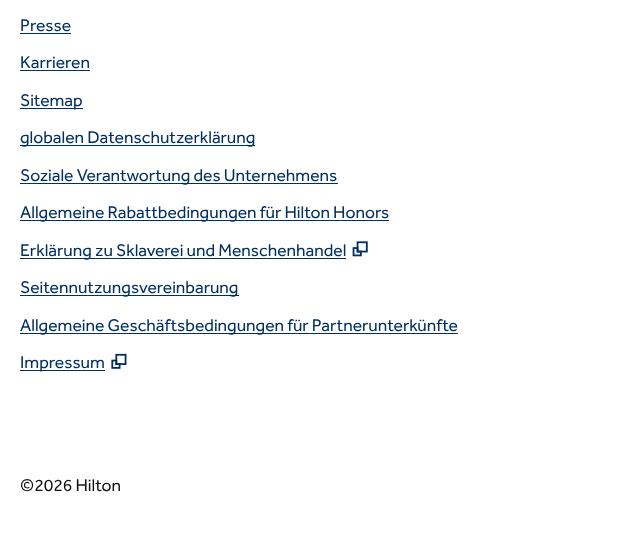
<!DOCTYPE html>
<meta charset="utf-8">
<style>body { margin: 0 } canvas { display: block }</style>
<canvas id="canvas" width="626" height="537"></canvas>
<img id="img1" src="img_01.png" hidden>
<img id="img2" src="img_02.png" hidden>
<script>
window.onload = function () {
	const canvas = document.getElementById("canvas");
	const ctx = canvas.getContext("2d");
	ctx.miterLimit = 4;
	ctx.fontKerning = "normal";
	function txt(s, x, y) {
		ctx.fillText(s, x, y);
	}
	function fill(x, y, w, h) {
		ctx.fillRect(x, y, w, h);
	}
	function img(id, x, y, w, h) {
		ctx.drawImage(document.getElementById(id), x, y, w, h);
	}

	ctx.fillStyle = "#FFFFFF";
	fill(0, 0, 626, 537);
	ctx.fillStyle = "#002F61";
	fill(20, 33, 51, 1);
	fill(20, 70, 70, 1);
	fill(20, 108, 63, 1);
	fill(20, 145, 235, 1);
	fill(20, 183, 318, 1);
	fill(20, 220, 369, 1);
	fill(20, 258, 326, 1);
	img("img1", 352, 241, 16, 16);
	fill(20, 295, 219, 1);
	fill(20, 333, 438, 1);
	fill(20, 370, 85, 1);
	img("img2", 111, 353, 16, 16);
	ctx.font = "17.5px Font";
	txt("Presse", 20, 31);
	txt("Karrieren", 20, 68);
	txt("Sitemap", 20, 106);
	txt("globalen Datenschutzerklärung", 20, 143);
	txt("Soziale Verantwortung des Unternehmens", 20, 181);
	txt("Allgemeine Rabattbedingungen für Hilton Honors", 20, 218);
	txt("Erklärung zu Sklaverei und Menschenhandel", 20, 256);
	txt("Seitennutzungsvereinbarung", 20, 293);
	txt("Allgemeine Geschäftsbedingungen für Partnerunterkünfte", 20, 331);
	txt("Impressum", 20, 368);
	ctx.fillStyle = "#121212";
	txt("©2026 Hilton", 20, 491);
};
</script>
